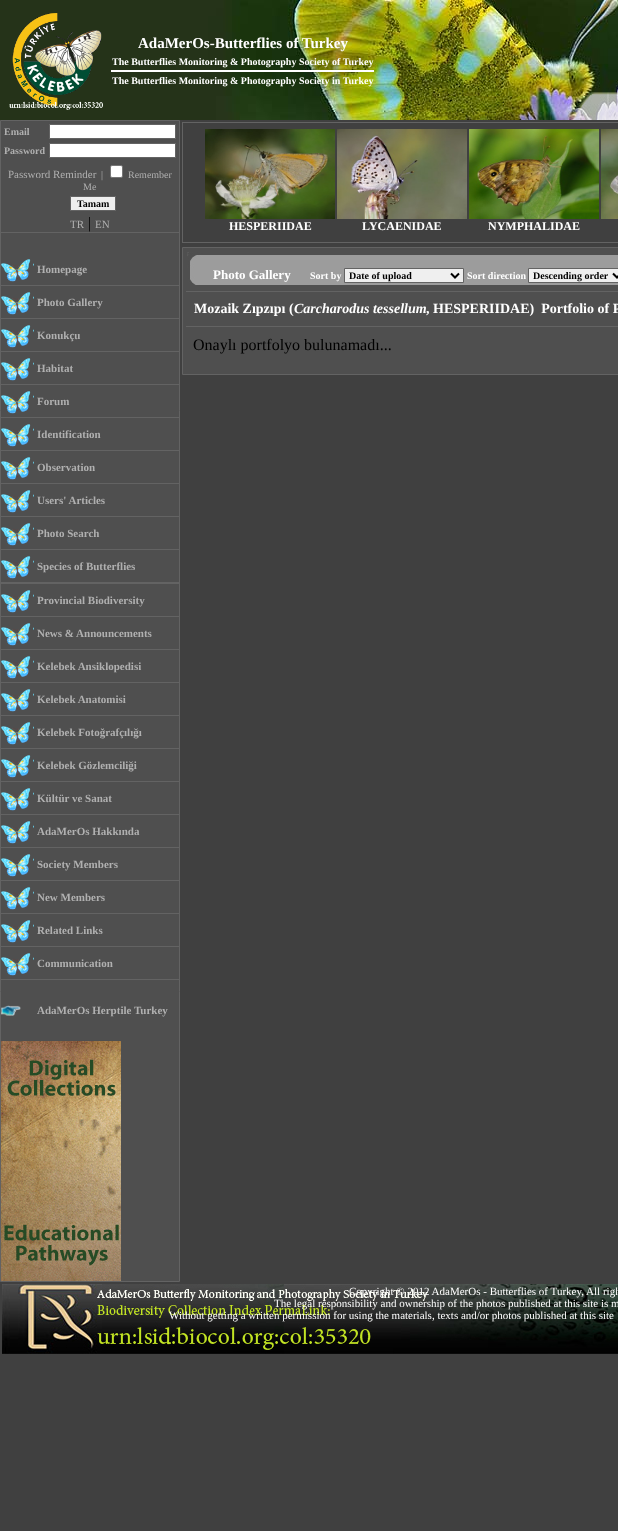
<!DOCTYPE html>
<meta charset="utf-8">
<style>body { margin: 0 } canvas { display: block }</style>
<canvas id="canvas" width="618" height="1531"></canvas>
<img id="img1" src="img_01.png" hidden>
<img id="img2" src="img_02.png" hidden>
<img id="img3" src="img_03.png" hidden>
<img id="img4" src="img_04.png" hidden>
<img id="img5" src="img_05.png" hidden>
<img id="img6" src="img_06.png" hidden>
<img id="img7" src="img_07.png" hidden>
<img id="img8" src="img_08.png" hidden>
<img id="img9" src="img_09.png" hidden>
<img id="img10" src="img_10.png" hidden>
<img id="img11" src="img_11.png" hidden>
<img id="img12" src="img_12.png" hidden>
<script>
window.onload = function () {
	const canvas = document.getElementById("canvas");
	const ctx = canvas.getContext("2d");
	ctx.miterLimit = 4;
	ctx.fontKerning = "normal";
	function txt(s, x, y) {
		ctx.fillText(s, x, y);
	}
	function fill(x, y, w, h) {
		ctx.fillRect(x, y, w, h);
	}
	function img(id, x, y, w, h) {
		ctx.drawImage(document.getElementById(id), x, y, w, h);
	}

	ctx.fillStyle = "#404040";
	fill(0, 0, 618, 1531);
	img("img1", 0, 0, 618, 120);
	img("img2", 9, 13, 94, 97);
	ctx.fillStyle = "#FFFFFF";
	fill(111, 70, 263, 2);
	img("img3", 569, 92, 49, 28);
	ctx.fillStyle = "#4F4F4F";
	ctx.beginPath();
	ctx.rect(0.5, 120.5, 179, 1161);
	ctx.fill();
	ctx.strokeStyle = "#636363";
	ctx.stroke();
	ctx.fillStyle = "#FFFFFF";
	ctx.beginPath();
	ctx.rect(49.5, 124.5, 126, 14);
	ctx.fill();
	ctx.stroke();
	ctx.beginPath();
	ctx.rect(49.5, 143.5, 126, 14);
	ctx.fill();
	ctx.stroke();
	ctx.beginPath();
	ctx.roundRect(110.5, 165.5, 12, 12, 1.5);
	ctx.fill();
	ctx.strokeStyle = "#767676";
	ctx.stroke();
	ctx.fillStyle = "#EFEFEF";
	ctx.beginPath();
	ctx.rect(70.5, 196.5, 45, 14);
	ctx.fill();
	ctx.strokeStyle = "#636363";
	ctx.stroke();
	ctx.fillStyle = "#636363";
	fill(1, 232, 178, 1);
	img("img4", 1, 259, 33, 23);
	fill(1, 285, 178, 1);
	img("img4", 1, 292, 33, 23);
	fill(1, 318, 178, 1);
	img("img4", 1, 325, 33, 23);
	fill(1, 351, 178, 1);
	img("img4", 1, 358, 33, 23);
	fill(1, 384, 178, 1);
	img("img4", 1, 391, 33, 23);
	fill(1, 417, 178, 1);
	img("img4", 1, 424, 33, 23);
	fill(1, 450, 178, 1);
	img("img4", 1, 457, 33, 23);
	fill(1, 483, 178, 1);
	img("img4", 1, 490, 33, 23);
	fill(1, 516, 178, 1);
	img("img4", 1, 523, 33, 23);
	fill(1, 549, 178, 1);
	img("img4", 1, 556, 33, 23);
	fill(1, 582, 178, 2);
	img("img4", 1, 590, 33, 23);
	fill(1, 616, 178, 1);
	img("img4", 1, 623, 33, 23);
	fill(1, 649, 178, 1);
	img("img4", 1, 656, 33, 23);
	fill(1, 682, 178, 1);
	img("img4", 1, 689, 33, 23);
	fill(1, 715, 178, 1);
	img("img4", 1, 722, 33, 23);
	fill(1, 748, 178, 1);
	img("img4", 1, 755, 33, 23);
	fill(1, 781, 178, 1);
	img("img4", 1, 788, 33, 23);
	fill(1, 814, 178, 1);
	img("img4", 1, 821, 33, 23);
	fill(1, 847, 178, 1);
	img("img4", 1, 854, 33, 23);
	fill(1, 880, 178, 1);
	img("img4", 1, 887, 33, 23);
	fill(1, 913, 178, 1);
	img("img4", 1, 920, 33, 23);
	fill(1, 946, 178, 1);
	img("img4", 1, 953, 33, 23);
	fill(1, 979, 178, 1);
	img("img5", 1, 1005, 20, 11);
	img("img6", 1, 1041, 120, 240);
	ctx.strokeRect(182.5, 122.5, 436, 120);
	img("img7", 601, 129, 17, 90);
	img("img8", 205, 129, 130, 90);
	img("img9", 337, 129, 130, 90);
	img("img10", 469, 129, 130, 90);
	ctx.fillStyle = "#4F4F4F";
	ctx.beginPath();
	ctx.rect(182.5, 247.5, 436, 127);
	ctx.fill();
	ctx.stroke();
	img("img11", 187, 252, 431, 33);
	ctx.fillStyle = "#EFEFEF";
	ctx.beginPath();
	ctx.rect(344.5, 268.5, 119, 14);
	ctx.fill();
	ctx.stroke();
	ctx.beginPath();
	ctx.moveTo(451, 273.5);
	ctx.lineTo(455, 277.5);
	ctx.lineTo(459, 273.5);
	ctx.strokeStyle = "#000000";
	ctx.lineWidth = 2;
	ctx.stroke();
	ctx.beginPath();
	ctx.rect(528.5, 268.5, 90, 14);
	ctx.fill();
	ctx.strokeStyle = "#636363";
	ctx.lineWidth = 1;
	ctx.stroke();
	ctx.beginPath();
	ctx.moveTo(613, 273.5);
	ctx.lineTo(617, 277.5);
	ctx.lineTo(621, 273.5);
	ctx.strokeStyle = "#000000";
	ctx.lineWidth = 2;
	ctx.stroke();
	ctx.fillStyle = "#636363";
	fill(186, 291, 432, 1);
	fill(186, 326, 432, 1);
	img("img12", 2, 1284, 616, 70);
	ctx.font = "bold 15px Liberation Serif";
	ctx.fillStyle = "#FFFFFF";
	txt("AdaMerOs-Butterflies of Turkey", 138, 48);
	ctx.font = "bold 10px Liberation Serif";
	txt("The Butterflies Monitoring & Photography Society of Turkey", 112, 65);
	txt("The Butterflies Monitoring & Photography Society in Turkey", 112, 84);
	ctx.fillStyle = "#B0B0B0";
	txt("Email", 4, 135);
	txt("Password", 4, 154);
	ctx.font = "11px Liberation Serif";
	txt("Password Reminder", 8, 178);
	ctx.font = "10px Liberation Serif";
	txt("|", 101, 178);
	txt("Remember", 128, 178);
	txt("Me", 83, 190);
	ctx.font = "bold 10px Liberation Serif";
	ctx.fillStyle = "#000000";
	txt("Tamam", 77, 207);
	ctx.font = "11px Liberation Serif";
	ctx.fillStyle = "#B0B0B0";
	txt("TR", 70, 228);
	ctx.font = "16px Liberation Serif";
	ctx.fillStyle = "#000000";
	txt("|", 88, 228);
	ctx.font = "11px Liberation Serif";
	ctx.fillStyle = "#B0B0B0";
	txt("EN", 95, 228);
	ctx.font = "bold 11px Liberation Serif";
	txt("Homepage", 37, 273);
	txt("Photo Gallery", 37, 306);
	txt("Konukçu", 37, 339);
	txt("Habitat", 37, 372);
	txt("Forum", 37, 405);
	txt("Identification", 37, 438);
	txt("Observation", 37, 471);
	txt("Users' Articles", 37, 504);
	txt("Photo Search", 37, 537);
	txt("Species of Butterflies", 37, 570);
	txt("Provincial Biodiversity", 37, 604);
	txt("News & Announcements", 37, 637);
	txt("Kelebek Ansiklopedisi", 37, 670);
	txt("Kelebek Anatomisi", 37, 703);
	txt("Kelebek Fotoğrafçılığı", 37, 736);
	txt("Kelebek Gözlemciliği", 37, 769);
	txt("Kültür ve Sanat", 37, 802);
	txt("AdaMerOs Hakkında", 37, 835);
	txt("Society Members", 37, 868);
	txt("New Members", 37, 901);
	txt("Related Links", 37, 934);
	txt("Communication", 37, 967);
	txt("AdaMerOs Herptile Turkey", 37, 1014);
	ctx.font = "bold 12px Liberation Serif";
	ctx.fillStyle = "#FFFFFF";
	txt("HESPERIIDAE", 229, 230);
	txt("LYCAENIDAE", 362, 230);
	txt("NYMPHALIDAE", 488, 230);
	ctx.font = "bold 13px Liberation Serif";
	txt("Photo Gallery", 213, 279);
	ctx.font = "bold 10px Liberation Serif";
	txt("Sort by", 310, 279);
	ctx.fillStyle = "#000000";
	txt("Date of upload", 349, 279);
	ctx.fillStyle = "#FFFFFF";
	txt("Sort direction", 467, 279);
	ctx.fillStyle = "#000000";
	txt("Descending order", 533, 279);
	ctx.font = "bold 14px Liberation Serif";
	ctx.fillStyle = "#FFFFFF";
	txt("Mozaik Zıpzıpı (", 194, 313);
	ctx.font = "italic bold 14px Liberation Serif";
	txt("Carcharodus tessellum", 294, 313);
	ctx.font = "bold 14px Liberation Serif";
	txt(", HESPERIIDAE)  Portfolio of P", 426, 313);
	ctx.font = "16px Liberation Serif";
	ctx.fillStyle = "#000000";
	txt("Onaylı portfolyo bulunamadı...", 193, 350);
	ctx.font = "11px Liberation Serif";
	ctx.fillStyle = "#FFFFFF";
	txt("Copyright © 2012 AdaMerOs - Butterflies of Turkey, All righ", 349, 1295);
	txt("The legal responsibility and ownership of the photos published at this site is m", 274, 1307);
	txt("Without getting a written permission for using the materials, texts and/or photos published at this site", 169, 1319);
};
</script>
